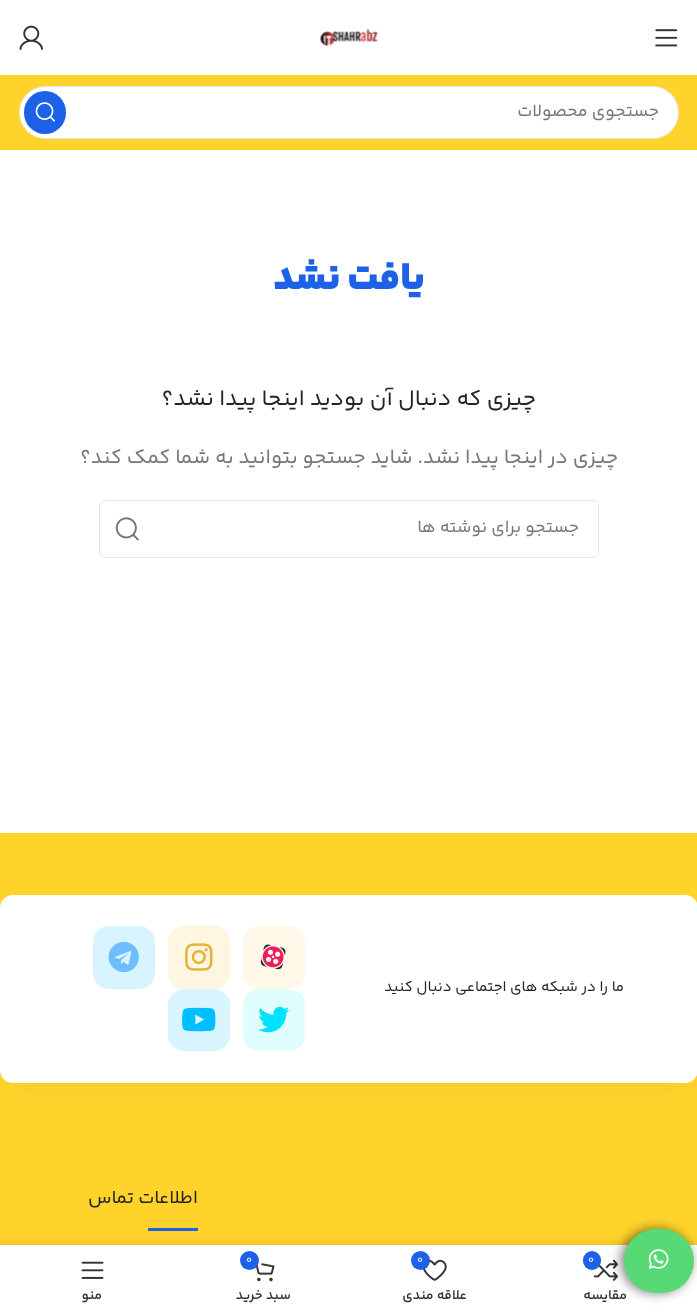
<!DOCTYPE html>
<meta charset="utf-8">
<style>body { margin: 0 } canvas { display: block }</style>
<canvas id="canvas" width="697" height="1313"></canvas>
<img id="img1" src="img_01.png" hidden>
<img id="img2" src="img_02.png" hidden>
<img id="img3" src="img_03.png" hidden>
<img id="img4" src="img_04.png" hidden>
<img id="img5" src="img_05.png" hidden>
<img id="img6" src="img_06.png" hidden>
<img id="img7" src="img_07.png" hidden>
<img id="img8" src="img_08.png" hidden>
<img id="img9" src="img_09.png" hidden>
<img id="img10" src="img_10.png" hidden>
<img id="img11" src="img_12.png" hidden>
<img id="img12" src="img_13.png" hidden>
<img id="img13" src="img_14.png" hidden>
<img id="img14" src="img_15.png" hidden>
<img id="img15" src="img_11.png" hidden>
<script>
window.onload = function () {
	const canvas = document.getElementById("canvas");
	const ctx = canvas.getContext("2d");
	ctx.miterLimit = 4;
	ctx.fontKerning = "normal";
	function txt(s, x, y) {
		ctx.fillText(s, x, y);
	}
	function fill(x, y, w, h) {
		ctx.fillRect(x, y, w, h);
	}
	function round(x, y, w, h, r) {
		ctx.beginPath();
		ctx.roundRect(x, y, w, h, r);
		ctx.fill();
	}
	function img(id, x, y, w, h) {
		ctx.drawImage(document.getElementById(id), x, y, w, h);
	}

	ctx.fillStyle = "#FFFFFF";
	fill(0, 0, 697, 1313);
	img("img1", 655, 29, 23, 18);
	img("img2", 320, 28, 58, 19);
	img("img3", 19, 25, 24, 25);
	ctx.fillStyle = "#FFD32A";
	fill(0, 75, 697, 75);
	ctx.fillStyle = "#FFFFFF";
	round(19, 86, 660, 53, 26.5);
	ctx.beginPath();
	ctx.roundRect(19.5, 86.5, 659, 52, 26);
	ctx.strokeStyle = "rgba(0, 0, 0, 0.1)";
	ctx.stroke();
	ctx.fillStyle = "#1C61E7";
	round(24, 91, 42, 43, 21);
	img("img4", 35, 102, 20, 20);
	ctx.beginPath();
	ctx.roundRect(99.5, 500.5, 499, 57, 5.5);
	ctx.strokeStyle = "#E6E6E6";
	ctx.stroke();
	img("img5", 115, 517, 24, 24);
	ctx.fillStyle = "#FFD32A";
	fill(0, 833, 697, 412);
	ctx.fillStyle = "rgba(56, 69, 80, 0.07)";
	ctx.filter = "blur(12.5px)";
	ctx.beginPath();
	ctx.rect(13, 920, 672, 163);
	ctx.fill();
	ctx.filter = "none";
	ctx.fillStyle = "#FFFFFF";
	round(0, 895, 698, 188, 13);
	ctx.fillStyle = "#FFF7E7";
	round(243, 926, 62, 63, 16);
	img("img6", 260, 944, 26, 26);
	ctx.fillStyle = "#FFF6E1";
	round(168, 926, 62, 63, 16);
	img("img7", 185, 943, 28, 28);
	ctx.fillStyle = "#D8F5FF";
	round(93, 926, 62, 63, 16);
	img("img8", 108, 941, 31, 32);
	ctx.fillStyle = "#E0FEFE";
	round(243, 989, 62, 62, 16);
	img("img9", 258, 1006, 32, 27);
	ctx.fillStyle = "#D8F5FF";
	round(168, 989, 62, 62, 16);
	img("img10", 182, 1007, 34, 25);
	ctx.fillStyle = "#1C61E7";
	fill(148, 1228, 50, 3);
	ctx.fillStyle = "rgba(0, 0, 0, 0.12)";
	ctx.filter = "blur(5.5px)";
	ctx.beginPath();
	ctx.rect(0, 1245, 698, 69);
	ctx.fill();
	ctx.filter = "none";
	ctx.fillStyle = "#FFFFFF";
	fill(0, 1245, 697, 68);
	img("img11", 593, 1259, 25, 22);
	ctx.fillStyle = "rgba(0, 0, 0, 0.5)";
	ctx.filter = "blur(6px)";
	ctx.beginPath();
	ctx.roundRect(621, 1229, 70, 64, 32);
	ctx.fill();
	ctx.filter = "none";
	ctx.fillStyle = "#1C61E7";
	round(583, 1251, 18, 19, 9);
	img("img12", 423, 1259, 24, 22);
	ctx.beginPath();
	ctx.arc(420.5, 1260.5, 9.5, 0, Math.PI * 2);
	ctx.fill();
	img("img13", 256, 1263, 19, 19);
	ctx.beginPath();
	ctx.arc(249.5, 1260.5, 9.5, 0, Math.PI * 2);
	ctx.fill();
	img("img14", 81, 1261, 23, 18);
	ctx.direction = "rtl";
	ctx.font = "17.5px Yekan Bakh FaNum";
	ctx.fillStyle = "#777777";
	txt("جستجوی محصولات", 659, 116);
	ctx.font = "900 40px Yekan Bakh FaNum";
	ctx.fillStyle = "#1C61E7";
	txt("یافت نشد", 425, 289);
	ctx.font = "22.5px Yekan Bakh FaNum";
	ctx.fillStyle = "#242424";
	txt("چیزی که دنبال آن بودید اینجا پیدا نشد؟", 536, 405);
	ctx.font = "20.6px Yekan Bakh FaNum";
	ctx.fillStyle = "#777777";
	txt("چیزی در اینجا پیدا نشد. شاید جستجو بتوانید به شما کمک کند؟", 618, 463);
	ctx.font = "17.5px Yekan Bakh FaNum";
	txt("جستجو برای نوشته ها", 579, 532);
	ctx.font = "15px Yekan Bakh FaNum";
	ctx.fillStyle = "#242424";
	txt("ما را در شبکه های اجتماعی دنبال کنید", 624, 991);
	ctx.font = "18.75px Yekan Bakh FaNum";
	txt("اطلاعات تماس", 198, 1203);
	ctx.direction = "ltr";
	ctx.font = "11px Yekan Bakh FaNum";
	ctx.fillStyle = "#FFFFFF";
	txt("0", 588, 1263);
	ctx.direction = "rtl";
	ctx.font = "600 13.75px Yekan Bakh FaNum";
	ctx.fillStyle = "#333333";
	txt("مقایسه", 627, 1299);
	ctx.fillStyle = "#57DA75";
	round(624, 1229, 70, 64, 32);
	img("img15", 648, 1249, 21, 20);
	ctx.direction = "ltr";
	ctx.font = "11px Yekan Bakh FaNum";
	ctx.fillStyle = "#FFFFFF";
	txt("0", 417, 1263);
	ctx.direction = "rtl";
	ctx.font = "600 13.75px Yekan Bakh FaNum";
	ctx.fillStyle = "#333333";
	txt("علاقه مندی", 467, 1299);
	ctx.direction = "ltr";
	ctx.font = "11px Yekan Bakh FaNum";
	ctx.fillStyle = "#FFFFFF";
	txt("0", 246, 1263);
	ctx.direction = "rtl";
	ctx.font = "600 13.75px Yekan Bakh FaNum";
	ctx.fillStyle = "#333333";
	txt("سبد خرید", 291, 1299);
	txt("منو", 102, 1299);
};
</script>
